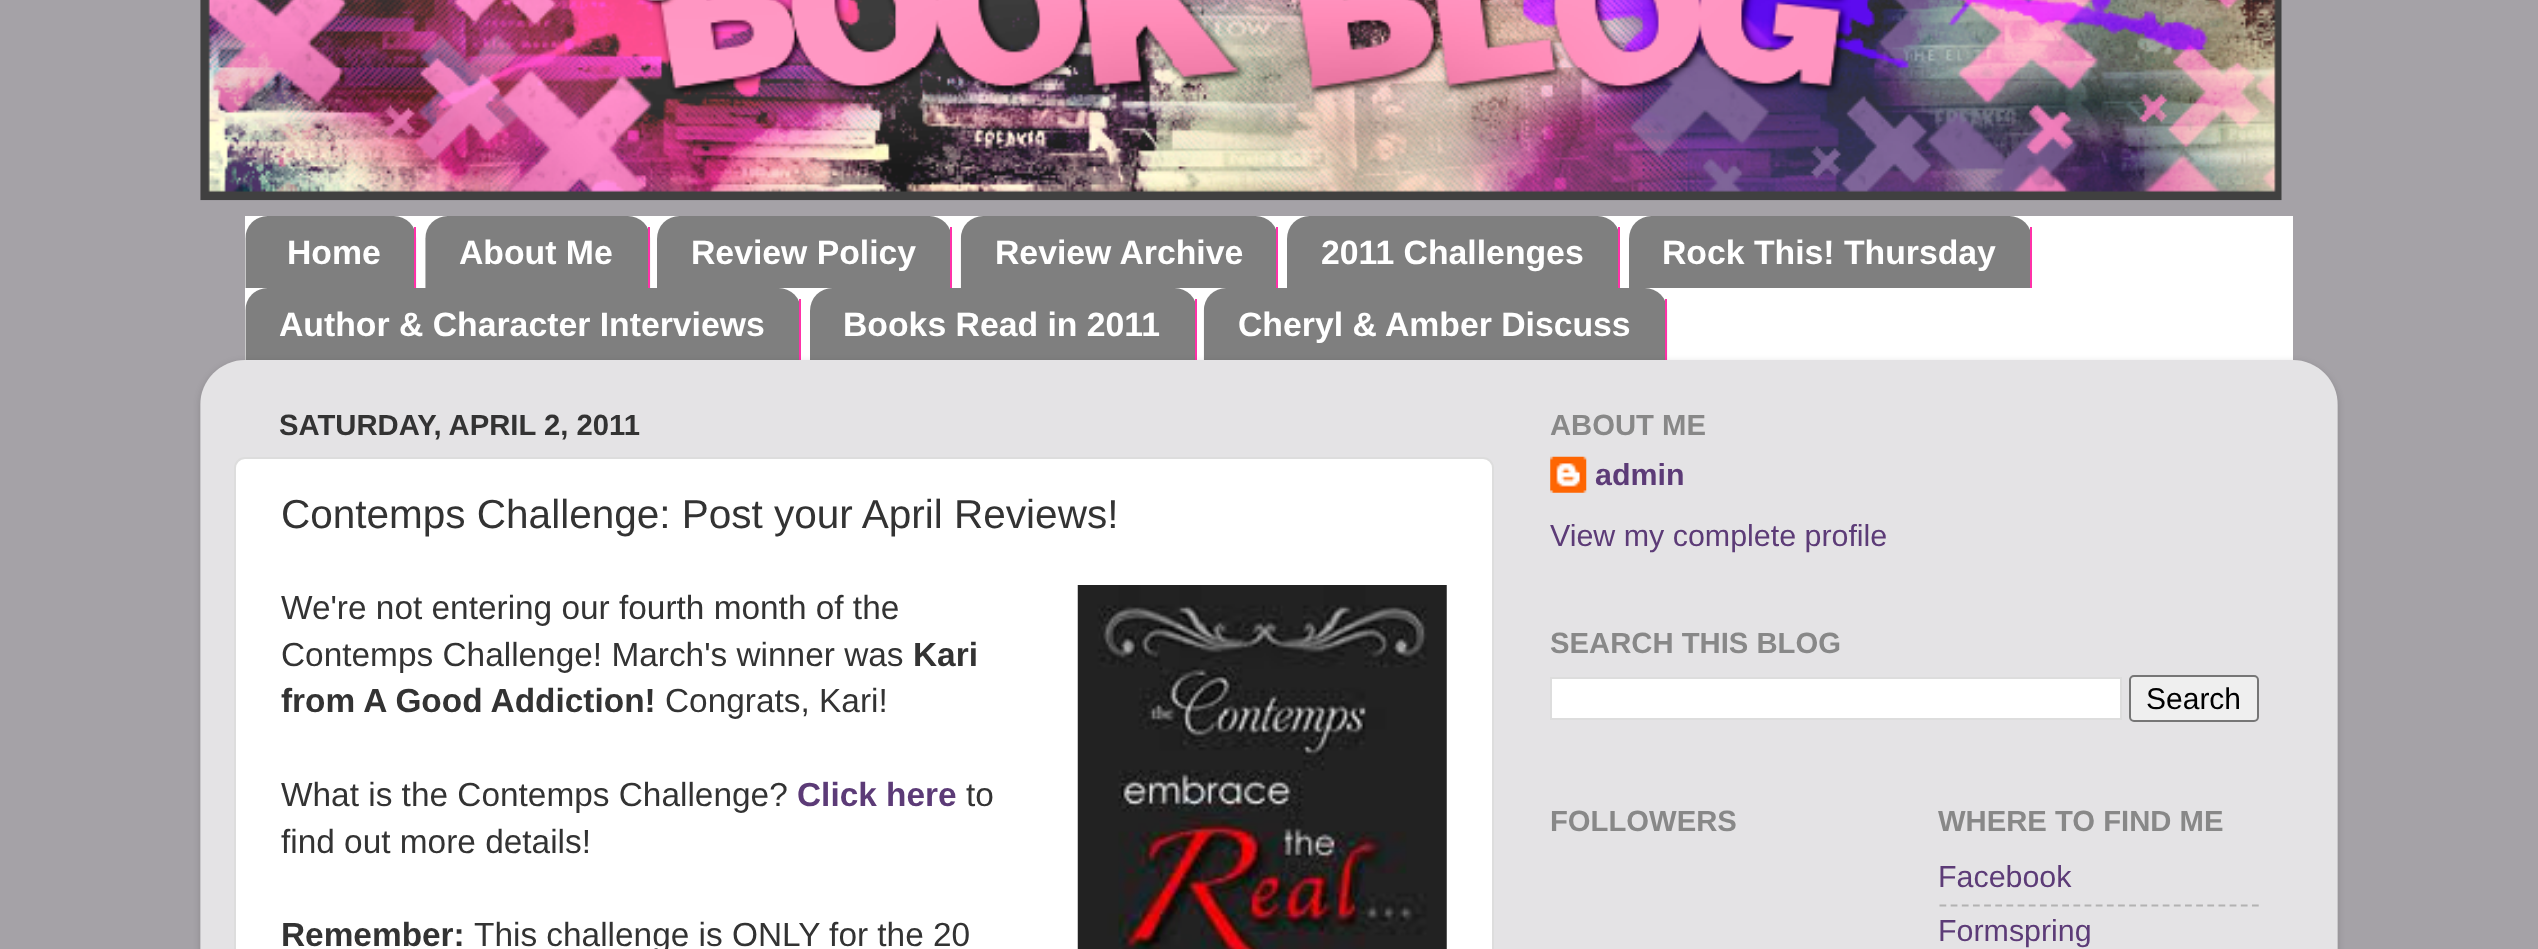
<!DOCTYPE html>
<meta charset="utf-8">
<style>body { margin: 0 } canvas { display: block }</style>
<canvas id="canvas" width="2538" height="949"></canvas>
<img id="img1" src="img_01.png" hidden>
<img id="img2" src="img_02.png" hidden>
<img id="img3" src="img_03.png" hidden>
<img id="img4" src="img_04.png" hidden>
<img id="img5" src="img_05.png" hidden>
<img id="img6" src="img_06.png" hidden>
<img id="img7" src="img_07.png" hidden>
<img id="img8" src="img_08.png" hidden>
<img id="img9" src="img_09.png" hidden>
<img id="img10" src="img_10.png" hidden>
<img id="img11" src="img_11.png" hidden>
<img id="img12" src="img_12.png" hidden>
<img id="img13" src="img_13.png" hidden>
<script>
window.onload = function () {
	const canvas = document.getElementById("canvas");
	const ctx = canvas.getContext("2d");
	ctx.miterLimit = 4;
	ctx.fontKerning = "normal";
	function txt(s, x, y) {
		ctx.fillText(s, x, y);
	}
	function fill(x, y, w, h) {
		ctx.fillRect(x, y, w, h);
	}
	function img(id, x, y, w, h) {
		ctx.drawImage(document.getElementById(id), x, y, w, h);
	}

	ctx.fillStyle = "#A5A2A7";
	fill(0, 0, 2538, 949);
	img("img1", 200, 0, 2082, 201);
	ctx.fillStyle = "#FFFFFF";
	fill(245, 216, 2048, 144);
	img("img2", 245, 216, 172, 72);
	ctx.fillStyle = "#FF31A8";
	fill(414, 227, 2, 61);
	img("img3", 425, 216, 226, 72);
	fill(648, 227, 2, 61);
	img("img4", 657, 216, 293, 72);
	fill(950, 227, 2, 61);
	img("img5", 960, 216, 316, 72);
	fill(1276, 227, 2, 61);
	img("img6", 1287, 216, 331, 72);
	fill(1618, 227, 2, 61);
	img("img7", 1629, 216, 401, 72);
	fill(2030, 227, 2, 61);
	img("img8", 245, 288, 554, 72);
	fill(799, 299, 2, 61);
	img("img9", 810, 288, 385, 72);
	fill(1195, 299, 2, 61);
	img("img10", 1203, 288, 465, 72);
	fill(1665, 299, 2, 61);
	ctx.save();
	ctx.beginPath();
	ctx.moveTo(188, 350);
	ctx.lineTo(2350, 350);
	ctx.lineTo(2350, 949);
	ctx.lineTo(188, 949);
	ctx.closePath();
	ctx.moveTo(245, 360);
	ctx.lineTo(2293, 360);
	ctx.bezierCurveTo(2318, 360, 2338, 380, 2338, 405);
	ctx.lineTo(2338, 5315);
	ctx.lineTo(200, 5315);
	ctx.lineTo(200, 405);
	ctx.bezierCurveTo(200, 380, 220, 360, 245, 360);
	ctx.closePath();
	ctx.clip("evenodd");
	ctx.fillStyle = "rgba(0, 0, 0, 0.15)";
	ctx.filter = "blur(3.5px)";
	ctx.beginPath();
	ctx.roundRect(200, 362, 2138, 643, 45);
	ctx.fill();
	ctx.filter = "none";
	ctx.restore();
	img("img11", 200, 360, 2138, 589);
	ctx.fillStyle = "#FFFFFF";
	ctx.beginPath();
	ctx.roundRect(235, 458, 1258, 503, 10);
	ctx.fill();
	ctx.strokeStyle = "#DDDDDD";
	ctx.lineWidth = 2;
	ctx.stroke();
	img("img12", 1077, 585, 370, 364);
	img("img13", 1550, 456, 37, 37);
	ctx.beginPath();
	ctx.rect(1551, 678, 570, 41);
	ctx.fill();
	ctx.stroke();
	ctx.fillStyle = "#EFEFEF";
	ctx.beginPath();
	ctx.roundRect(2130, 676, 128, 45, 4);
	ctx.fill();
	ctx.strokeStyle = "#767676";
	ctx.stroke();
	ctx.beginPath();
	ctx.moveTo(1939.5, 905.5);
	ctx.lineTo(2259, 905.5);
	ctx.strokeStyle = "#B2B2B2";
	ctx.lineWidth = 2.2;
	ctx.setLineDash([6.75, 4.41]);
	ctx.stroke();
	ctx.font = "bold 33.75px Liberation Sans";
	ctx.fillStyle = "#FFFFFF";
	txt("Home", 287, 264);
	txt("About Me", 459, 264);
	txt("Review Policy", 691, 264);
	txt("Review Archive", 995, 264);
	txt("2011 Challenges", 1321, 264);
	txt("Rock This! Thursday", 1662, 264);
	txt("Author & Character Interviews", 279, 336);
	txt("Books Read in 2011", 843, 336);
	txt("Cheryl & Amber Discuss", 1238, 336);
	ctx.font = "bold 29.25px Liberation Sans";
	ctx.fillStyle = "#333333";
	txt("SATURDAY, APRIL 2, 2011", 279, 435);
	ctx.font = "40.5px Liberation Sans";
	txt("Contemps Challenge: Post your April Reviews!", 281, 528);
	ctx.font = "33.4px Liberation Sans";
	txt("We're not entering our fourth month of the", 281, 619);
	txt("Contemps Challenge! March's winner was", 281, 666);
	ctx.font = "bold 33.4px Liberation Sans";
	txt("Kari", 913, 666);
	txt("from A Good Addiction!", 281, 712);
	ctx.font = "33.4px Liberation Sans";
	txt("Congrats, Kari!", 665, 712);
	txt("What is the Contemps Challenge?", 281, 806);
	ctx.font = "bold 33.4px Liberation Sans";
	ctx.fillStyle = "#5C3B77";
	txt("Click here", 797, 806);
	ctx.font = "33.4px Liberation Sans";
	ctx.fillStyle = "#333333";
	txt("to", 966, 806);
	txt("find out more details!", 281, 853);
	ctx.font = "bold 33.4px Liberation Sans";
	txt("Remember:", 281, 946);
	ctx.font = "33.4px Liberation Sans";
	txt("This challenge is ONLY for the 20", 474, 946);
	ctx.font = "bold 29.25px Liberation Sans";
	ctx.fillStyle = "#888888";
	txt("ABOUT ME", 1550, 435);
	ctx.font = "bold 30.4px Liberation Sans";
	ctx.fillStyle = "#5C3B77";
	txt("admin", 1595, 485);
	ctx.font = "30.4px Liberation Sans";
	txt("View my complete profile", 1550, 546);
	ctx.font = "bold 29.25px Liberation Sans";
	ctx.fillStyle = "#888888";
	txt("SEARCH THIS BLOG", 1550, 653);
	ctx.font = "30px Liberation Sans";
	ctx.fillStyle = "#000000";
	txt("Search", 2146, 709);
	ctx.font = "bold 29.25px Liberation Sans";
	ctx.fillStyle = "#888888";
	txt("FOLLOWERS", 1550, 831);
	txt("WHERE TO FIND ME", 1938, 831);
	ctx.font = "30.4px Liberation Sans";
	ctx.fillStyle = "#5C3B77";
	txt("Facebook", 1938, 887);
	txt("Formspring", 1938, 941);
};
</script>
